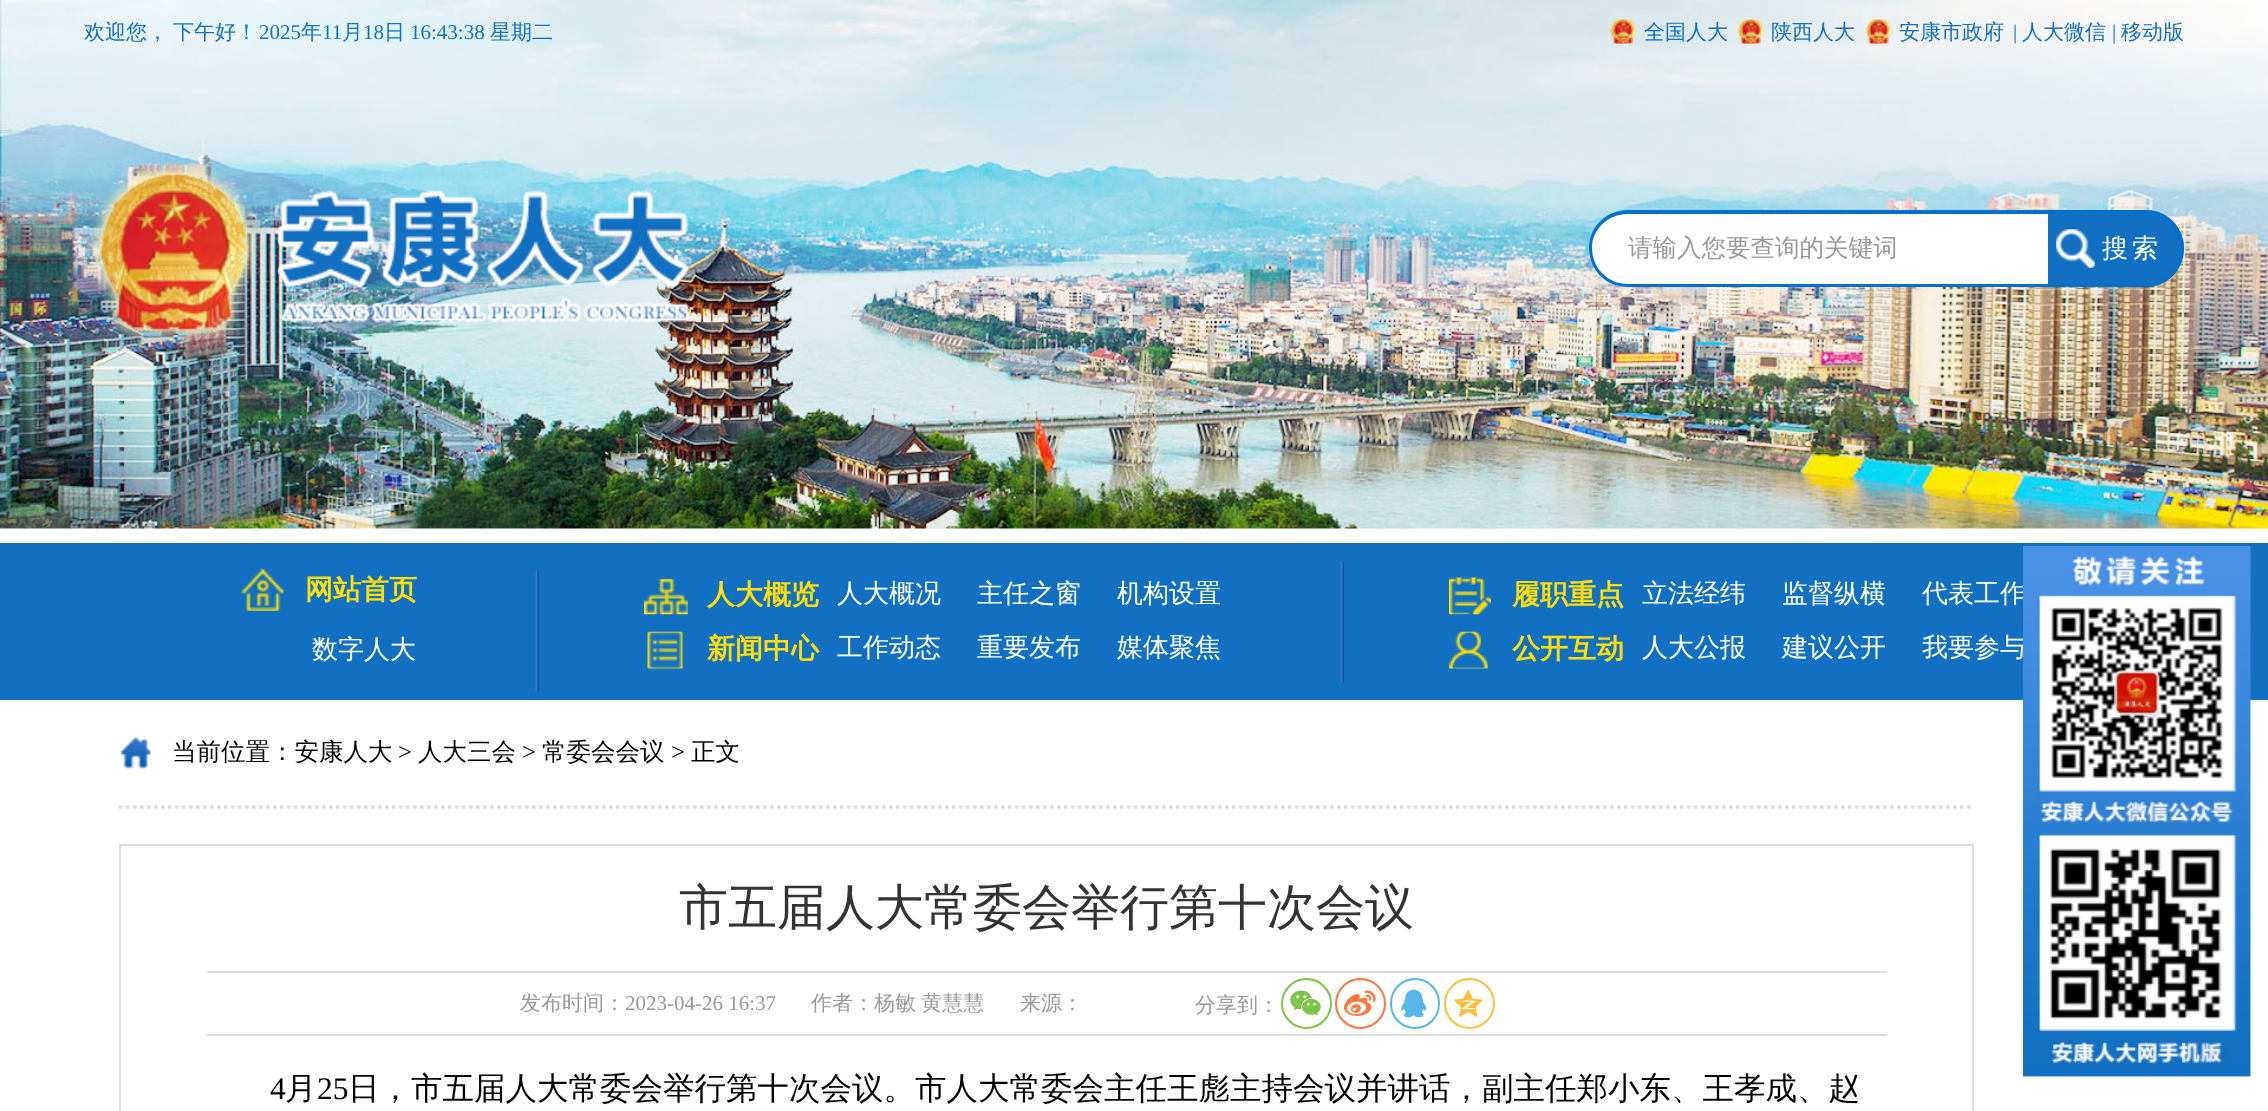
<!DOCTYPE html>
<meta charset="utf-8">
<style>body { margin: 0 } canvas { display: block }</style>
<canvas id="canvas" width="2268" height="1111"></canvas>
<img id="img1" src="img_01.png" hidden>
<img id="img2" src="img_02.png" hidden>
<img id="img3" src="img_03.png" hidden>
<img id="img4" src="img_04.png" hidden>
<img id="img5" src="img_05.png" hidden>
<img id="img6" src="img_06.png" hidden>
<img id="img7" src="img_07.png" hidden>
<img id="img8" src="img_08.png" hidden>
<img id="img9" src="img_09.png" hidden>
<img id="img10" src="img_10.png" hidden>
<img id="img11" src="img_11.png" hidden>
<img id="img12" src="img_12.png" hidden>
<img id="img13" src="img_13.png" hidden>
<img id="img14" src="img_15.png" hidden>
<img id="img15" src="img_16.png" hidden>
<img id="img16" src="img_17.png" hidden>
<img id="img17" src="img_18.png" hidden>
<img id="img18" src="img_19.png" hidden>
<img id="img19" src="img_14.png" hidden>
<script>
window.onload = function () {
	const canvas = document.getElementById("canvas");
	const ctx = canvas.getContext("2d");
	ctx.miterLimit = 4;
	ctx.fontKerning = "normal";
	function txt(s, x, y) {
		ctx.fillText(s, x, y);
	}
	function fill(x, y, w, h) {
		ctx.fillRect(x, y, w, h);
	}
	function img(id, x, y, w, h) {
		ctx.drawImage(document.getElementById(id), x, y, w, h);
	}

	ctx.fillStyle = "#FFFFFF";
	fill(0, 0, 2268, 1111);
	img("img1", 0, 0, 2268, 529);
	img("img2", 1610, 19, 27, 25);
	img("img3", 1737, 19, 27, 25);
	img("img4", 1865, 19, 27, 25);
	img("img5", 88, 161, 602, 183);
	ctx.beginPath();
	ctx.roundRect(1589, 210, 459, 77, [38.5, 0, 0, 38.5]);
	ctx.fill();
	ctx.fillStyle = "#0071CF";
	ctx.beginPath();
	ctx.moveTo(1628, 210);
	ctx.lineTo(2048, 210);
	ctx.lineTo(2048, 287);
	ctx.lineTo(1628, 287);
	ctx.bezierCurveTo(1606, 287, 1589, 270, 1589, 248);
	ctx.bezierCurveTo(1589, 227, 1606, 210, 1628, 210);
	ctx.closePath();
	ctx.moveTo(1628, 214);
	ctx.lineTo(2048, 214);
	ctx.lineTo(2048, 284);
	ctx.lineTo(1628, 284);
	ctx.bezierCurveTo(1608, 284, 1592, 268, 1592, 248);
	ctx.bezierCurveTo(1592, 229, 1608, 214, 1628, 214);
	ctx.closePath();
	ctx.fill("evenodd");
	ctx.fillStyle = "#1170C2";
	ctx.beginPath();
	ctx.roundRect(2048, 210, 136, 77, [0, 38.5, 38.5, 0]);
	ctx.fill();
	img("img6", 2056, 229, 39, 39);
	ctx.fillStyle = "#0071CF";
	ctx.beginPath();
	ctx.moveTo(2048, 210);
	ctx.lineTo(2146, 210);
	ctx.bezierCurveTo(2167, 210, 2184, 227, 2184, 248);
	ctx.bezierCurveTo(2184, 270, 2167, 287, 2146, 287);
	ctx.lineTo(2048, 287);
	ctx.closePath();
	ctx.moveTo(2048, 214);
	ctx.lineTo(2146, 214);
	ctx.bezierCurveTo(2165, 214, 2180, 229, 2180, 248);
	ctx.bezierCurveTo(2180, 268, 2165, 284, 2146, 284);
	ctx.lineTo(2048, 284);
	ctx.closePath();
	ctx.fill("evenodd");
	ctx.fillStyle = "#1170C2";
	fill(0, 543, 2268, 157);
	img("img7", 535, 570, 4, 122);
	img("img8", 241, 568, 43, 43);
	img("img9", 1340, 561, 4, 122);
	img("img10", 644, 579, 44, 36);
	img("img11", 647, 631, 36, 38);
	img("img12", 1449, 577, 42, 38);
	img("img13", 1449, 631, 39, 38);
	img("img14", 120, 736, 31, 33);
	ctx.beginPath();
	ctx.moveTo(119, 807);
	ctx.lineTo(1974, 807);
	ctx.strokeStyle = "#DDDDDD";
	ctx.lineWidth = 3.5;
	ctx.setLineDash([3.5, 3.5]);
	ctx.stroke();
	ctx.lineWidth = 2;
	ctx.setLineDash([]);
	ctx.strokeRect(120, 845, 1853, 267);
	ctx.fillStyle = "#DDDDDD";
	fill(207, 971, 1680, 2);
	fill(207, 1034, 1680, 2);
	ctx.beginPath();
	ctx.arc(1306.5, 1003.5, 24.5, 0, Math.PI * 2);
	ctx.strokeStyle = "#7BC549";
	ctx.stroke();
	img("img15", 1290, 990, 31, 26);
	ctx.beginPath();
	ctx.arc(1360.5, 1003.5, 24.5, 0, Math.PI * 2);
	ctx.strokeStyle = "#FF763B";
	ctx.stroke();
	img("img16", 1344, 990, 32, 26);
	ctx.beginPath();
	ctx.roundRect(1391, 979, 48, 49, 24);
	ctx.strokeStyle = "#56B6E7";
	ctx.stroke();
	img("img17", 1401, 989, 26, 29);
	ctx.beginPath();
	ctx.arc(1469.5, 1003.5, 24.5, 0, Math.PI * 2);
	ctx.strokeStyle = "#FDBE3D";
	ctx.stroke();
	img("img18", 1453, 989, 30, 28);
	ctx.font = "500 21px WenQuanYi Zen Hei";
	ctx.fillStyle = "#1170C2";
	txt("欢迎您，", 84, 39);
	txt("下午好！", 173, 39);
	ctx.font = "21px Liberation Serif";
	txt("2025", 259, 39);
	ctx.font = "500 21px WenQuanYi Zen Hei";
	txt("年", 301, 39);
	ctx.font = "21px Liberation Serif";
	txt("11", 322, 39);
	ctx.font = "500 21px WenQuanYi Zen Hei";
	txt("月", 342, 39);
	ctx.font = "21px Liberation Serif";
	txt("18", 363, 39);
	ctx.font = "500 21px WenQuanYi Zen Hei";
	txt("日", 384, 39);
	ctx.font = "21px Liberation Serif";
	txt("16:43:38", 410, 39);
	ctx.font = "500 21px WenQuanYi Zen Hei";
	txt("星期二", 490, 39);
	txt("全国人大", 1644, 39);
	txt("陕西人大", 1771, 39);
	txt("安康市政府", 1899, 39);
	ctx.font = "21px Liberation Serif";
	txt("|", 2013, 39);
	ctx.font = "500 21px WenQuanYi Zen Hei";
	txt("人大微信", 2022, 39);
	ctx.font = "21px Liberation Serif";
	txt("|", 2112, 39);
	ctx.font = "500 21px WenQuanYi Zen Hei";
	txt("移动版", 2121, 39);
	ctx.font = "500 24.5px WenQuanYi Zen Hei";
	ctx.fillStyle = "#999999";
	txt("请输入您要查询的关键词", 1628, 256);
	ctx.letterSpacing = "4px";
	ctx.font = "500 26px WenQuanYi Zen Hei";
	ctx.fillStyle = "#FFFFFF";
	txt("搜索", 2102, 257);
	ctx.letterSpacing = "0px";
	ctx.font = "bold 28px WenQuanYi Zen Hei";
	ctx.fillStyle = "#FFDF09";
	txt("网站首页", 305, 599);
	ctx.font = "500 26px WenQuanYi Zen Hei";
	ctx.fillStyle = "#FFFFFF";
	txt("数字人大", 312, 658);
	ctx.font = "bold 28px WenQuanYi Zen Hei";
	ctx.fillStyle = "#FFDF09";
	txt("人大概览", 707, 604);
	ctx.font = "500 26px WenQuanYi Zen Hei";
	ctx.fillStyle = "#FFFFFF";
	txt("人大概况", 837, 602);
	txt("主任之窗", 977, 602);
	txt("机构设置", 1117, 602);
	ctx.font = "bold 28px WenQuanYi Zen Hei";
	ctx.fillStyle = "#FFDF09";
	txt("新闻中心", 707, 658);
	ctx.font = "500 26px WenQuanYi Zen Hei";
	ctx.fillStyle = "#FFFFFF";
	txt("工作动态", 837, 656);
	txt("重要发布", 977, 656);
	txt("媒体聚焦", 1117, 656);
	ctx.font = "bold 28px WenQuanYi Zen Hei";
	ctx.fillStyle = "#FFDF09";
	txt("履职重点", 1512, 604);
	ctx.font = "500 26px WenQuanYi Zen Hei";
	ctx.fillStyle = "#FFFFFF";
	txt("立法经纬", 1642, 602);
	txt("监督纵横", 1782, 602);
	txt("代表工作", 1922, 602);
	ctx.font = "bold 28px WenQuanYi Zen Hei";
	ctx.fillStyle = "#FFDF09";
	txt("公开互动", 1512, 658);
	ctx.font = "500 26px WenQuanYi Zen Hei";
	ctx.fillStyle = "#FFFFFF";
	txt("人大公报", 1642, 656);
	txt("建议公开", 1782, 656);
	txt("我要参与", 1922, 656);
	img("img19", 2023, 546, 228, 531);
	ctx.font = "500 24.5px WenQuanYi Zen Hei";
	ctx.fillStyle = "#000000";
	txt("当前位置：安康人大", 172, 760);
	ctx.font = "24.5px Liberation Serif";
	txt(">", 398, 760);
	ctx.font = "500 24.5px WenQuanYi Zen Hei";
	txt("人大三会", 418, 760);
	ctx.font = "24.5px Liberation Serif";
	txt(">", 522, 760);
	ctx.font = "500 24.5px WenQuanYi Zen Hei";
	txt("常委会会议", 542, 760);
	ctx.font = "24.5px Liberation Serif";
	txt(">", 671, 760);
	ctx.font = "500 24.5px WenQuanYi Zen Hei";
	txt("正文", 691, 760);
	ctx.font = "500 49px WenQuanYi Zen Hei";
	ctx.fillStyle = "#333333";
	txt("市五届人大常委会举行第十次会议", 679, 924);
	ctx.font = "500 21px WenQuanYi Zen Hei";
	ctx.fillStyle = "#999999";
	txt("发布时间：", 520, 1010);
	ctx.font = "21px Liberation Serif";
	txt("2023-04-26 16:37", 625, 1010);
	ctx.wordSpacing = "-1px";
	ctx.font = "500 21px WenQuanYi Zen Hei";
	txt("作者：杨敏 黄慧慧", 811, 1010);
	ctx.wordSpacing = "0px";
	txt("来源：", 1020, 1010);
	txt("分享到：", 1195, 1012);
	ctx.font = "31.5px Liberation Serif";
	ctx.fillStyle = "#000000";
	txt("4", 270, 1099);
	ctx.font = "500 31.5px WenQuanYi Zen Hei";
	txt("月", 285, 1099);
	ctx.font = "31.5px Liberation Serif";
	txt("25", 317, 1099);
	ctx.font = "500 31.5px WenQuanYi Zen Hei";
	txt("日，市五届人大常委会举行第十次会议。市人大常委会主任王彪主持会议并讲话，副主任郑小东、王孝成、赵", 348, 1099);
};
</script>
